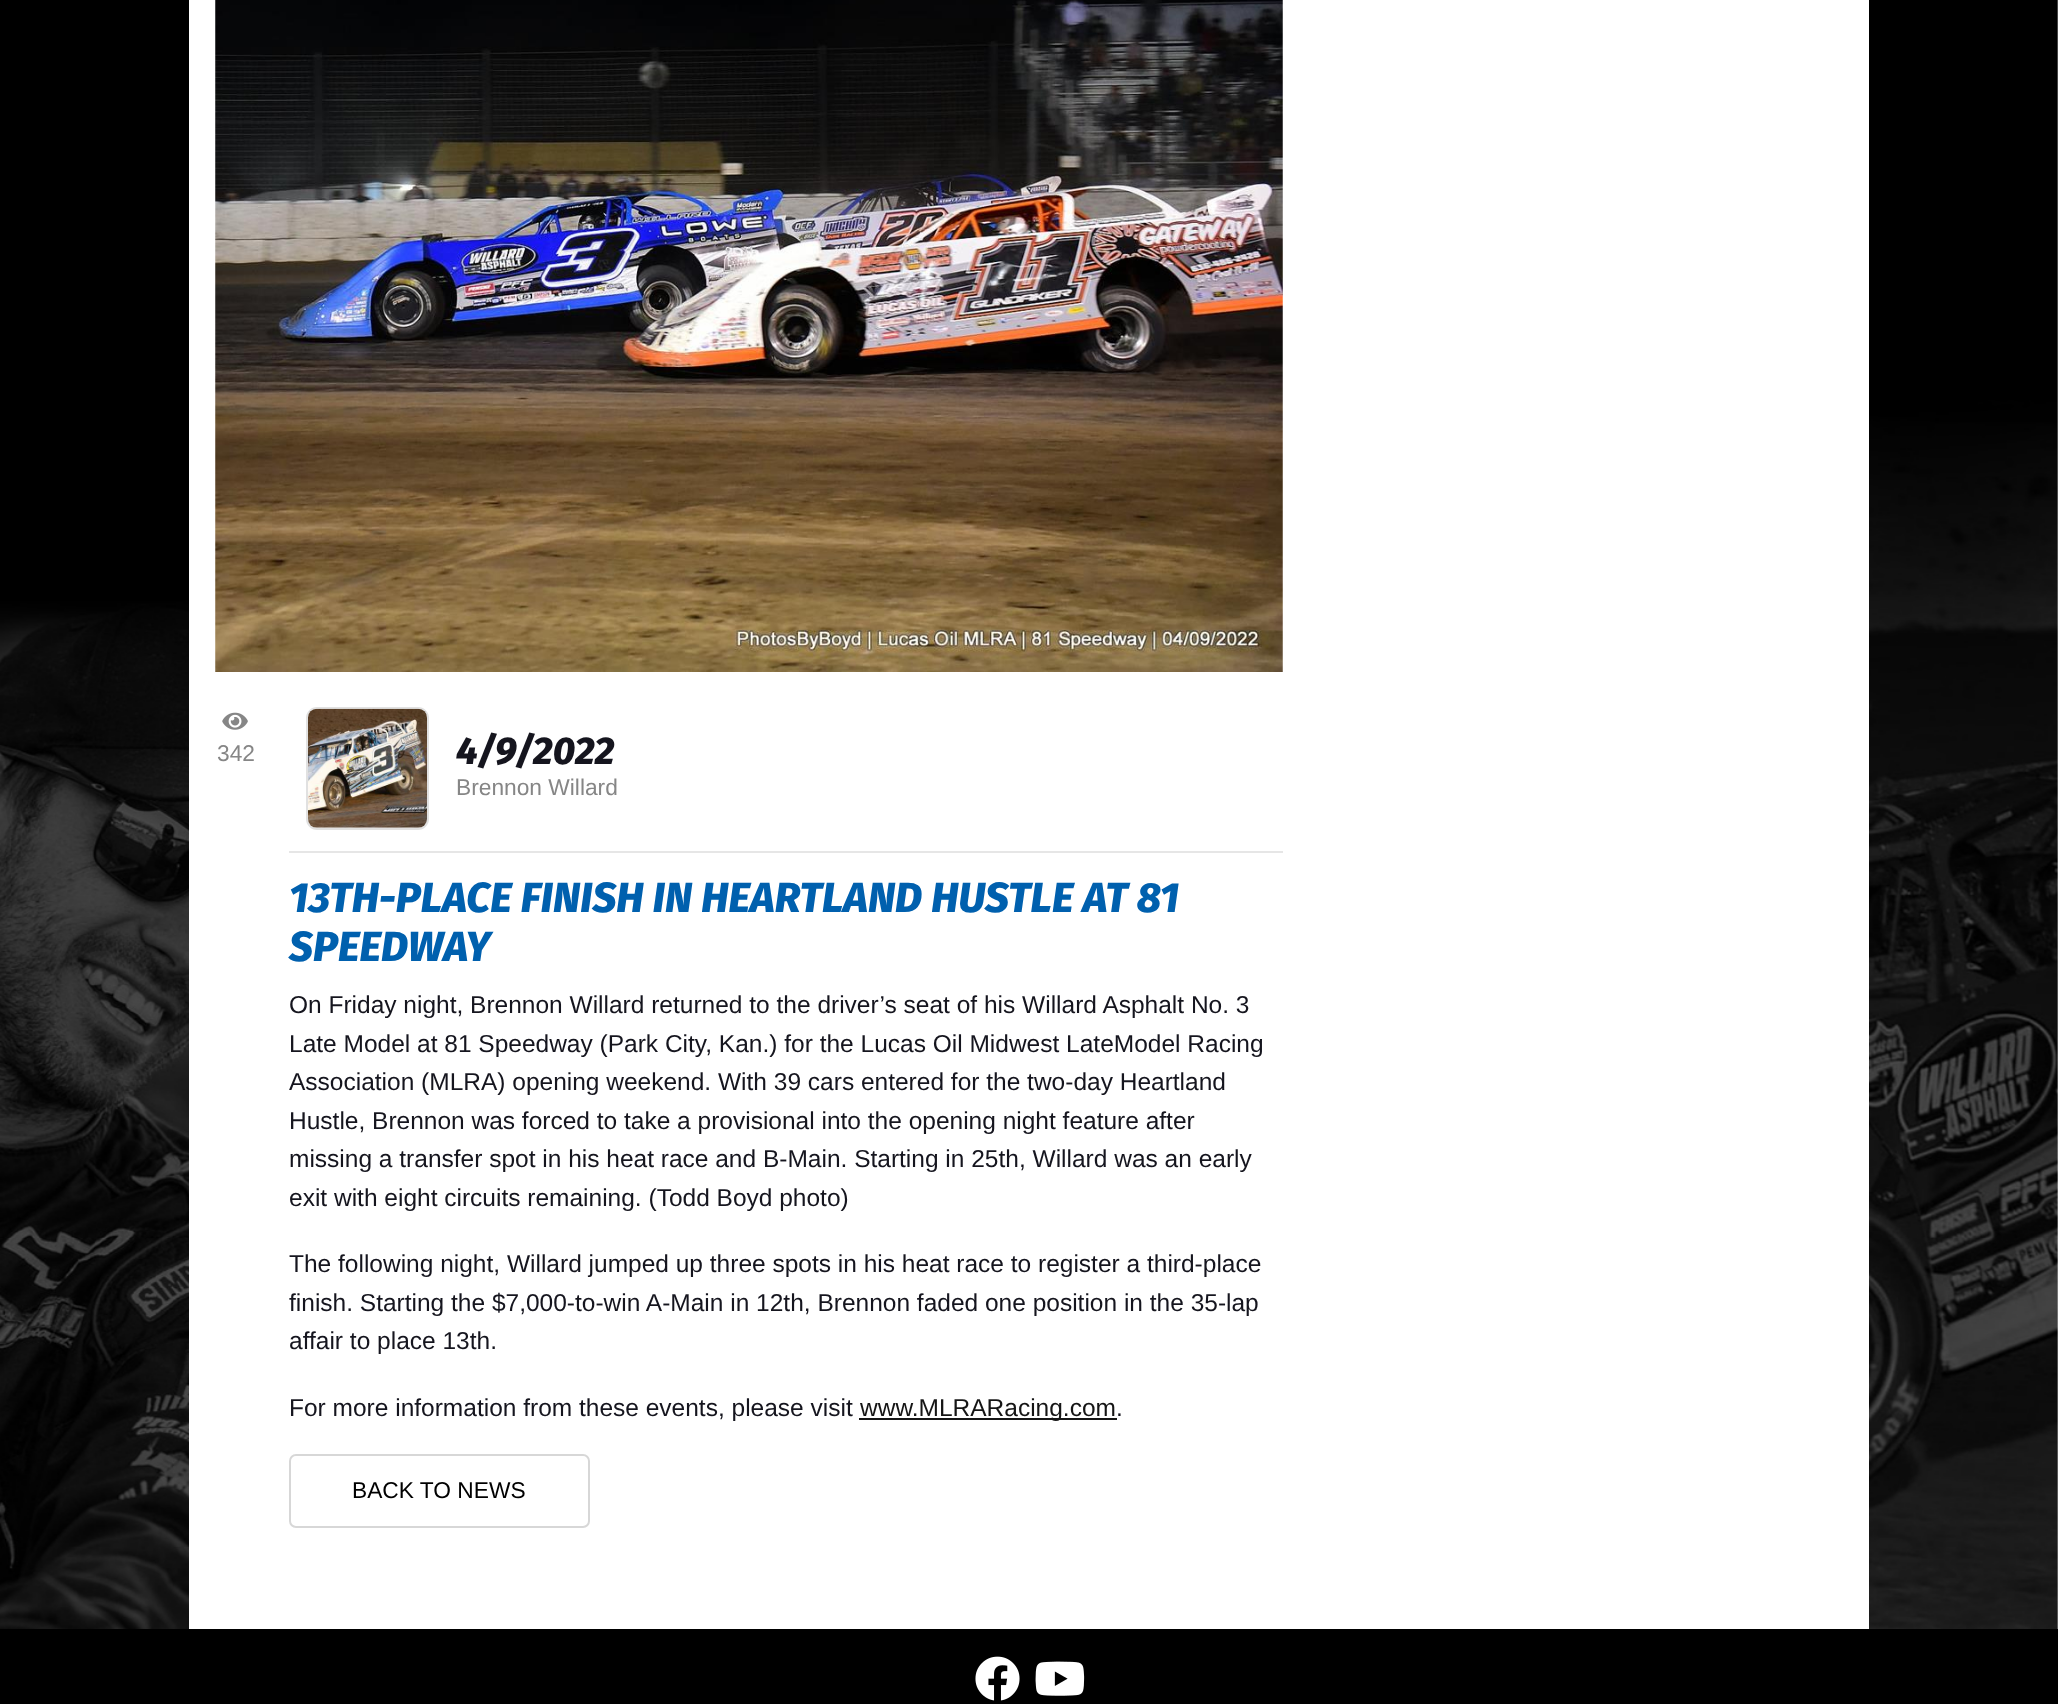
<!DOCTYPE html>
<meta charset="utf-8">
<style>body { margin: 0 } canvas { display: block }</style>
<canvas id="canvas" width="2058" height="1704"></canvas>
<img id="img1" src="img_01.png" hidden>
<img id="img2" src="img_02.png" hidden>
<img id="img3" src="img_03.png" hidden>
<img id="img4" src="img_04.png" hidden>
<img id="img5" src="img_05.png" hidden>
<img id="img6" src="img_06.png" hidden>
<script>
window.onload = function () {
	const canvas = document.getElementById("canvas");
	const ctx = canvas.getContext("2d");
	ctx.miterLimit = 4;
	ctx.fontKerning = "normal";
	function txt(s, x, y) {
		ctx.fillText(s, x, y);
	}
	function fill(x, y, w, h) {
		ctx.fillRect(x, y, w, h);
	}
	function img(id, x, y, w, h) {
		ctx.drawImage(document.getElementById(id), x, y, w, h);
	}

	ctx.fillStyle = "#FFFFFF";
	fill(0, 0, 2058, 1704);
	img("img1", 0, 0, 2058, 1629);
	fill(189, 0, 1680, 1629);
	img("img2", 215, 0, 1068, 672);
	img("img3", 222, 712, 26, 18);
	ctx.beginPath();
	ctx.roundRect(307, 708, 121, 121, 10);
	ctx.strokeStyle = "#E1E1E1";
	ctx.lineWidth = 2;
	ctx.stroke();
	img("img4", 308, 708, 119, 120);
	ctx.fillStyle = "#E6E6E6";
	fill(289, 851, 994, 2);
	ctx.fillStyle = "#151515";
	fill(859, 1418, 258, 2);
	ctx.beginPath();
	ctx.roundRect(290, 1455, 299, 72, 6);
	ctx.strokeStyle = "#D7D7D7";
	ctx.stroke();
	ctx.fillStyle = "#000000";
	fill(0, 1629, 2058, 75);
	img("img5", 975, 1656, 45, 45);
	img("img6", 1035, 1661, 50, 35);
	ctx.font = "22.75px Liberation Sans";
	ctx.fillStyle = "#868686";
	txt("342", 217, 761);
	ctx.font = "italic 800 38.5px Fira Sans";
	ctx.fillStyle = "#15151E";
	txt("4/9/2022", 456, 764);
	ctx.font = "22.75px Liberation Sans";
	ctx.fillStyle = "#868686";
	txt("Brennon Willard", 456, 795);
	ctx.font = "italic 800 42px Fira Sans";
	ctx.fillStyle = "#0060AE";
	txt("13TH-PLACE FINISH IN HEARTLAND HUSTLE AT 81", 289, 912);
	txt("SPEEDWAY", 289, 961);
	ctx.font = "24.5px Liberation Sans";
	ctx.fillStyle = "#15151E";
	txt("On Friday night, Brennon Willard returned to the driver’s seat of his Willard Asphalt No. 3", 289, 1013);
	txt("Late Model at 81 Speedway (Park City, Kan.) for the Lucas Oil Midwest LateModel Racing", 289, 1052);
	txt("Association (MLRA) opening weekend. With 39 cars entered for the two-day Heartland", 289, 1090);
	txt("Hustle, Brennon was forced to take a provisional into the opening night feature after", 289, 1129);
	txt("missing a transfer spot in his heat race and B-Main. Starting in 25th, Willard was an early", 289, 1167);
	txt("exit with eight circuits remaining. (Todd Boyd photo)", 289, 1206);
	txt("The following night, Willard jumped up three spots in his heat race to register a third-place", 289, 1272);
	txt("finish. Starting the $7,000-to-win A-Main in 12th, Brennon faded one position in the 35-lap", 289, 1311);
	txt("affair to place 13th.", 289, 1349);
	txt("For more information from these events, please visit", 289, 1416);
	ctx.fillStyle = "#151515";
	txt("www.MLRARacing.com", 860, 1416);
	ctx.fillStyle = "#15151E";
	txt(".", 1116, 1416);
	ctx.font = "22.75px Liberation Sans";
	ctx.fillStyle = "#000000";
	txt("BACK TO NEWS", 352, 1498);
};
</script>
